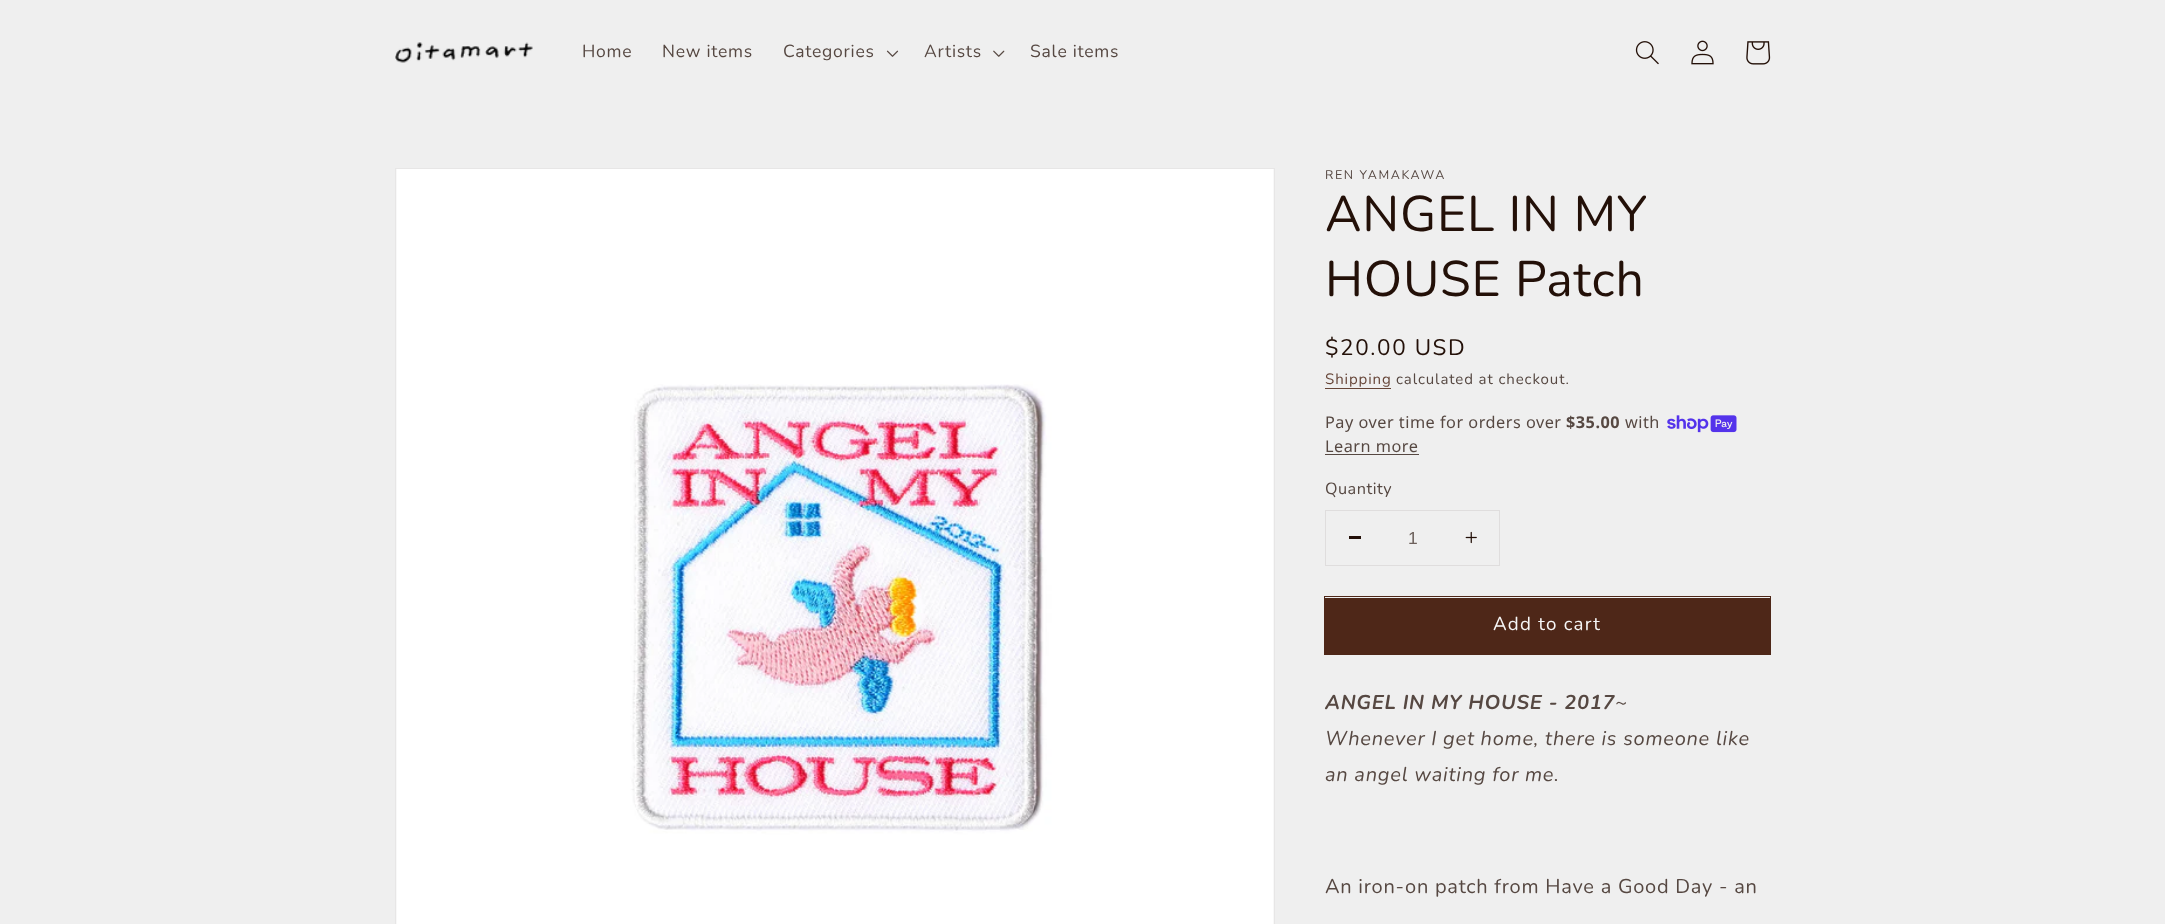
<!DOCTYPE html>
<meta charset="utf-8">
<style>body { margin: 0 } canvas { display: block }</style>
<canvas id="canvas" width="2165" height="924"></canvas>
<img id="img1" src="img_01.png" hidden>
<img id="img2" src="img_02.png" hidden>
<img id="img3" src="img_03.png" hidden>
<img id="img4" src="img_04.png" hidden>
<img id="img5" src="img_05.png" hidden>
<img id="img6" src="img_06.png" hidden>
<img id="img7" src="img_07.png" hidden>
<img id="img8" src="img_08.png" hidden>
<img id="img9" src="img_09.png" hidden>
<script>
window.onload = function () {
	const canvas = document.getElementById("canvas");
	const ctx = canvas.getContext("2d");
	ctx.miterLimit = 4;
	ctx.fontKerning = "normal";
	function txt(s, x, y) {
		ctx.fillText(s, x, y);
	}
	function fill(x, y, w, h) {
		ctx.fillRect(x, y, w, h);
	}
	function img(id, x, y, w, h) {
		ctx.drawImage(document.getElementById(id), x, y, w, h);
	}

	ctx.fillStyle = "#EFEFEF";
	fill(0, 0, 2165, 924);
	img("img1", 395, 42, 138, 21);
	img("img2", 886, 50, 13, 7);
	img("img3", 993, 50, 12, 7);
	img("img4", 1635, 41, 24, 24);
	img("img5", 1691, 40, 23, 25);
	img("img6", 1746, 41, 25, 24);
	ctx.strokeStyle = "#E7E6E6";
	ctx.strokeRect(395.5, 168.5, 879, 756);
	img("img7", 396, 169, 878, 755);
	ctx.fillStyle = "#664538";
	fill(1325, 388, 66, 1);
	img("img8", 1667, 415, 70, 18);
	ctx.fillStyle = "#564842";
	fill(1325, 454, 94, 1);
	ctx.strokeStyle = "#DFDDDD";
	ctx.strokeRect(1325.5, 510.5, 174, 55);
	ctx.fillStyle = "#231008";
	fill(1349, 536, 12, 3);
	img("img9", 1465, 531, 12, 13);
	ctx.strokeStyle = "#4E2718";
	ctx.strokeRect(1324.5, 596.5, 446, 58);
	ctx.fillStyle = "#4E2718";
	fill(1325, 598, 445, 56);
	ctx.letterSpacing = "0.75px";
	ctx.font = "17.5px Nunito";
	ctx.fillStyle = "#564842";
	txt("Home", 582, 57);
	txt("New items", 662, 57);
	txt("Categories", 783, 57);
	txt("Artists", 924, 57);
	txt("Sale items", 1030, 57);
	ctx.letterSpacing = "1.6px";
	ctx.font = "12.5px Nunito";
	txt("REN YAMAKAWA", 1325, 179);
	ctx.letterSpacing = "0.75px";
	ctx.font = "50px Nunito";
	ctx.fillStyle = "#231008";
	txt("ANGEL IN MY", 1325, 231);
	txt("HOUSE Patch", 1325, 296);
	ctx.letterSpacing = "1.6px";
	ctx.font = "22.5px Nunito";
	txt("$20.00 USD", 1325, 355);
	ctx.letterSpacing = "0.9px";
	ctx.font = "15px Nunito";
	ctx.fillStyle = "#664538";
	txt("Shipping", 1325, 384);
	ctx.fillStyle = "#564842";
	txt("calculated at checkout.", 1396, 384);
	ctx.letterSpacing = "0.5px";
	ctx.font = "16.25px Noto Sans";
	txt("Pay over time for orders over", 1325, 428);
	ctx.font = "bold 16.25px Noto Sans";
	txt("$35.00", 1566, 428);
	ctx.font = "16.25px Noto Sans";
	txt("with", 1625, 428);
	txt("Learn more", 1325, 452);
	ctx.font = "16.25px Nunito";
	txt("Quantity", 1325, 494);
	ctx.letterSpacing = "0px";
	ctx.font = "17.5px Liberation Sans";
	ctx.fillStyle = "#6D615C";
	txt("1", 1408, 544);
	ctx.letterSpacing = "1.25px";
	ctx.font = "18.75px Nunito";
	ctx.fillStyle = "#F6F6F6";
	txt("Add to cart", 1493, 630);
	ctx.letterSpacing = "0.75px";
	ctx.font = "italic bold 20px Nunito";
	ctx.fillStyle = "#564842";
	txt("ANGEL IN MY HOUSE - 2017", 1325, 709);
	ctx.font = "italic 20px Nunito";
	txt("~", 1615, 709);
	txt("Whenever I get home, there is someone like", 1325, 745);
	txt("an angel waiting for me.", 1325, 781);
	ctx.font = "20px Nunito";
	txt("An iron-on patch from Have a Good Day - an", 1325, 893);
};
</script>
